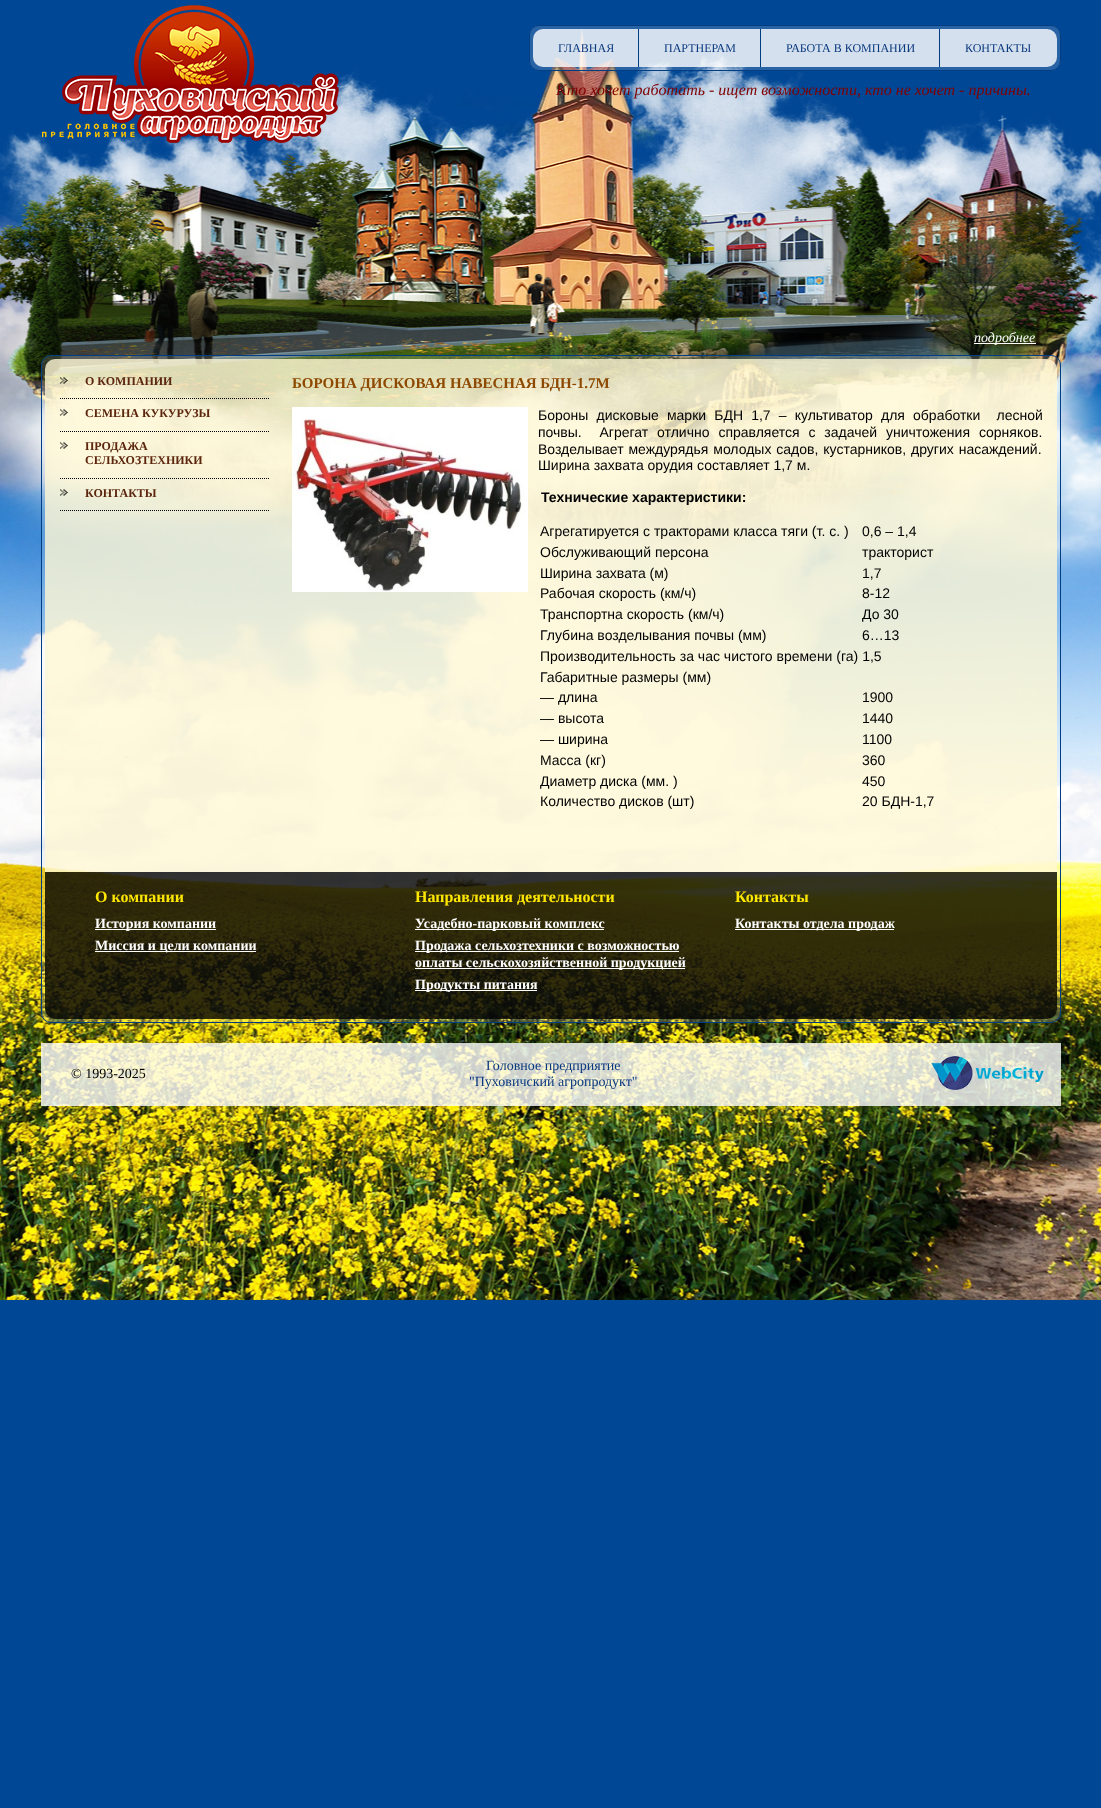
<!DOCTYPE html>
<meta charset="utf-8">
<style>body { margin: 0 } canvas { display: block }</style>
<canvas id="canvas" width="1101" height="1808"></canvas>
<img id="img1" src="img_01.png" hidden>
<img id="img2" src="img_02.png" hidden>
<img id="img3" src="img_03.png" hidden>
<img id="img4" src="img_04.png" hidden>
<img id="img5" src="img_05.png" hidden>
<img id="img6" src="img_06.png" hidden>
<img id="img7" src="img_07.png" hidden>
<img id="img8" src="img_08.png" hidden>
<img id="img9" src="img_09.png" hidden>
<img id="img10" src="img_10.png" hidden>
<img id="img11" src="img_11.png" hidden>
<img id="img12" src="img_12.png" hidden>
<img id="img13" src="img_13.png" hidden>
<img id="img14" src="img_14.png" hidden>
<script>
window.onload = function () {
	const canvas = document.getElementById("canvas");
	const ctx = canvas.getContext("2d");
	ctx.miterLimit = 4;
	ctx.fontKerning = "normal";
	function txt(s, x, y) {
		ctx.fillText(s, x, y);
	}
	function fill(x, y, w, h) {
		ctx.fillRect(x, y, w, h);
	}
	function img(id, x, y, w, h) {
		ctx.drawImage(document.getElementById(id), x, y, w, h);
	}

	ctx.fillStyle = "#004795";
	fill(0, 0, 1101, 1808);
	img("img1", 0, 28, 1101, 1272);
	img("img2", 42, 5, 297, 138);
	img("img3", 529, 25, 532, 46);
	ctx.beginPath();
	ctx.roundRect(529.5, 25.5, 531, 45, 9.5);
	ctx.strokeStyle = "#003E83";
	ctx.stroke();
	img("img4", 533, 29, 105, 38);
	ctx.fillStyle = "rgba(255, 255, 255, 0.8)";
	fill(639, 29, 121, 38);
	ctx.fillStyle = "#003E83";
	fill(638, 29, 1, 38);
	ctx.fillStyle = "rgba(255, 255, 255, 0.8)";
	fill(761, 29, 178, 38);
	ctx.fillStyle = "#003E83";
	fill(760, 29, 1, 38);
	img("img5", 940, 29, 117, 38);
	fill(939, 29, 1, 38);
	ctx.fillStyle = "#FFFFFF";
	fill(974, 343, 62, 1);
	img("img6", 41, 355, 1020, 668);
	ctx.beginPath();
	ctx.roundRect(41.5, 355.5, 1019, 667, 9.5);
	ctx.stroke();
	img("img7", 45, 359, 1012, 513);
	ctx.beginPath();
	ctx.moveTo(60, 398.5);
	ctx.lineTo(270, 398.5);
	ctx.strokeStyle = "#000000";
	ctx.setLineDash([1, 1]);
	ctx.stroke();
	img("img8", 60, 377, 8, 7);
	ctx.beginPath();
	ctx.moveTo(60, 431.5);
	ctx.lineTo(270, 431.5);
	ctx.stroke();
	img("img9", 60, 409, 8, 7);
	ctx.beginPath();
	ctx.moveTo(60, 478.5);
	ctx.lineTo(270, 478.5);
	ctx.stroke();
	img("img10", 60, 442, 8, 7);
	ctx.beginPath();
	ctx.moveTo(60, 510.5);
	ctx.lineTo(270, 510.5);
	ctx.stroke();
	img("img11", 60, 489, 8, 7);
	img("img12", 292, 407, 236, 185);
	img("img13", 45, 872, 1012, 147);
	fill(95, 929, 121, 1);
	fill(95, 951, 161, 1);
	fill(415, 929, 189, 1);
	fill(415, 951, 264, 1);
	fill(415, 968, 270, 1);
	fill(415, 990, 122, 1);
	fill(735, 929, 159, 1);
	ctx.fillStyle = "rgba(255, 255, 255, 0.8)";
	fill(41, 1043, 1020, 63);
	img("img14", 931, 1056, 113, 34);
	ctx.font = "12px Liberation Serif";
	ctx.fillStyle = "#0B397F";
	txt("ГЛАВНАЯ", 558, 52);
	txt("ПАРТНЕРАМ", 664, 52);
	txt("РАБОТА В КОМПАНИИ", 786, 52);
	txt("КОНТАКТЫ", 965, 52);
	ctx.font = "italic 16px Liberation Serif";
	ctx.fillStyle = "#800000";
	txt("Кто хочет работать - ищет возможности, кто не хочет - причины.", 556, 95);
	ctx.font = "italic 14px Liberation Serif";
	ctx.fillStyle = "#FFFFFF";
	txt("подробнее", 974, 342);
	ctx.font = "bold 12px Liberation Serif";
	ctx.fillStyle = "#5C260E";
	txt("О КОМПАНИИ", 85, 385);
	txt("СЕМЕНА КУКУРУЗЫ", 85, 417);
	txt("ПРОДАЖА", 85, 450);
	txt("СЕЛЬХОЗТЕХНИКИ", 85, 464);
	txt("КОНТАКТЫ", 85, 497);
	ctx.font = "bold 15px Liberation Serif";
	ctx.fillStyle = "#8E4901";
	txt("БОРОНА ДИСКОВАЯ НАВЕСНАЯ БДН-1.7М", 292, 388);
	ctx.wordSpacing = "4.25px";
	ctx.font = "14px Liberation Sans";
	ctx.fillStyle = "#000000";
	txt("Бороны дисковые марки БДН 1,7 – культиватор для обработки  лесной", 538, 420);
	ctx.wordSpacing = "5px";
	txt("почвы.  Агрегат отлично справляется с задачей уничтожения сорняков.", 538, 437);
	ctx.wordSpacing = "1px";
	txt("Возделывает междурядья молодых садов, кустарников, других насаждений.", 538, 454);
	ctx.wordSpacing = "0px";
	txt("Ширина захвата орудия составляет 1,7 м.", 538, 470);
	ctx.font = "bold 14px Liberation Sans";
	txt("Технические характеристики:", 541, 502);
	ctx.font = "14px Liberation Sans";
	txt("Агрегатируется с тракторами класса тяги (т. с. )", 540, 536);
	txt("0,6 – 1,4", 862, 536);
	txt("Обслуживающий персона", 540, 557);
	txt("тракторист", 862, 557);
	txt("Ширина захвата (м)", 540, 578);
	txt("1,7", 862, 578);
	txt("Рабочая скорость (км/ч)", 540, 598);
	txt("8-12", 862, 598);
	txt("Транспортна скорость (км/ч)", 540, 619);
	txt("До 30", 862, 619);
	txt("Глубина возделывания почвы (мм)", 540, 640);
	txt("6…13", 862, 640);
	txt("Производительность за час чистого времени (га) 1,5", 540, 661);
	txt("Габаритные размеры (мм)", 540, 682);
	txt("— длина", 540, 702);
	txt("1900", 862, 702);
	txt("— высота", 540, 723);
	txt("1440", 862, 723);
	txt("— ширина", 540, 744);
	txt("1100", 862, 744);
	txt("Масса (кг)", 540, 765);
	txt("360", 862, 765);
	txt("Диаметр диска (мм. )", 540, 786);
	txt("450", 862, 786);
	txt("Количество дисков (шт)", 540, 806);
	txt("20 БДН-1,7", 862, 806);
	ctx.font = "bold 16px Liberation Serif";
	ctx.fillStyle = "#FFE800";
	txt("О компании", 95, 902);
	ctx.font = "bold 14px Liberation Serif";
	ctx.fillStyle = "#FFFFFF";
	txt("История компании", 95, 928);
	txt("Миссия и цели компании", 95, 950);
	ctx.font = "bold 16px Liberation Serif";
	ctx.fillStyle = "#FFE800";
	txt("Направления деятельности", 415, 902);
	ctx.font = "bold 14px Liberation Serif";
	ctx.fillStyle = "#FFFFFF";
	txt("Усадебно-парковый комплекс", 415, 928);
	txt("Продажа сельхозтехники с возможностью", 415, 950);
	txt("оплаты сельскохозяйственной продукцией", 415, 967);
	txt("Продукты питания", 415, 989);
	ctx.font = "bold 16px Liberation Serif";
	ctx.fillStyle = "#FFE800";
	txt("Контакты", 735, 902);
	ctx.font = "bold 14px Liberation Serif";
	ctx.fillStyle = "#FFFFFF";
	txt("Контакты отдела продаж", 735, 928);
	ctx.font = "14px Liberation Serif";
	ctx.fillStyle = "#000000";
	txt("© 1993-2025", 71, 1078);
	ctx.fillStyle = "#0B397F";
	txt("Головное предприятие", 486, 1070);
	txt("\"Пуховичский агропродукт\"", 469, 1086);
};
</script>
